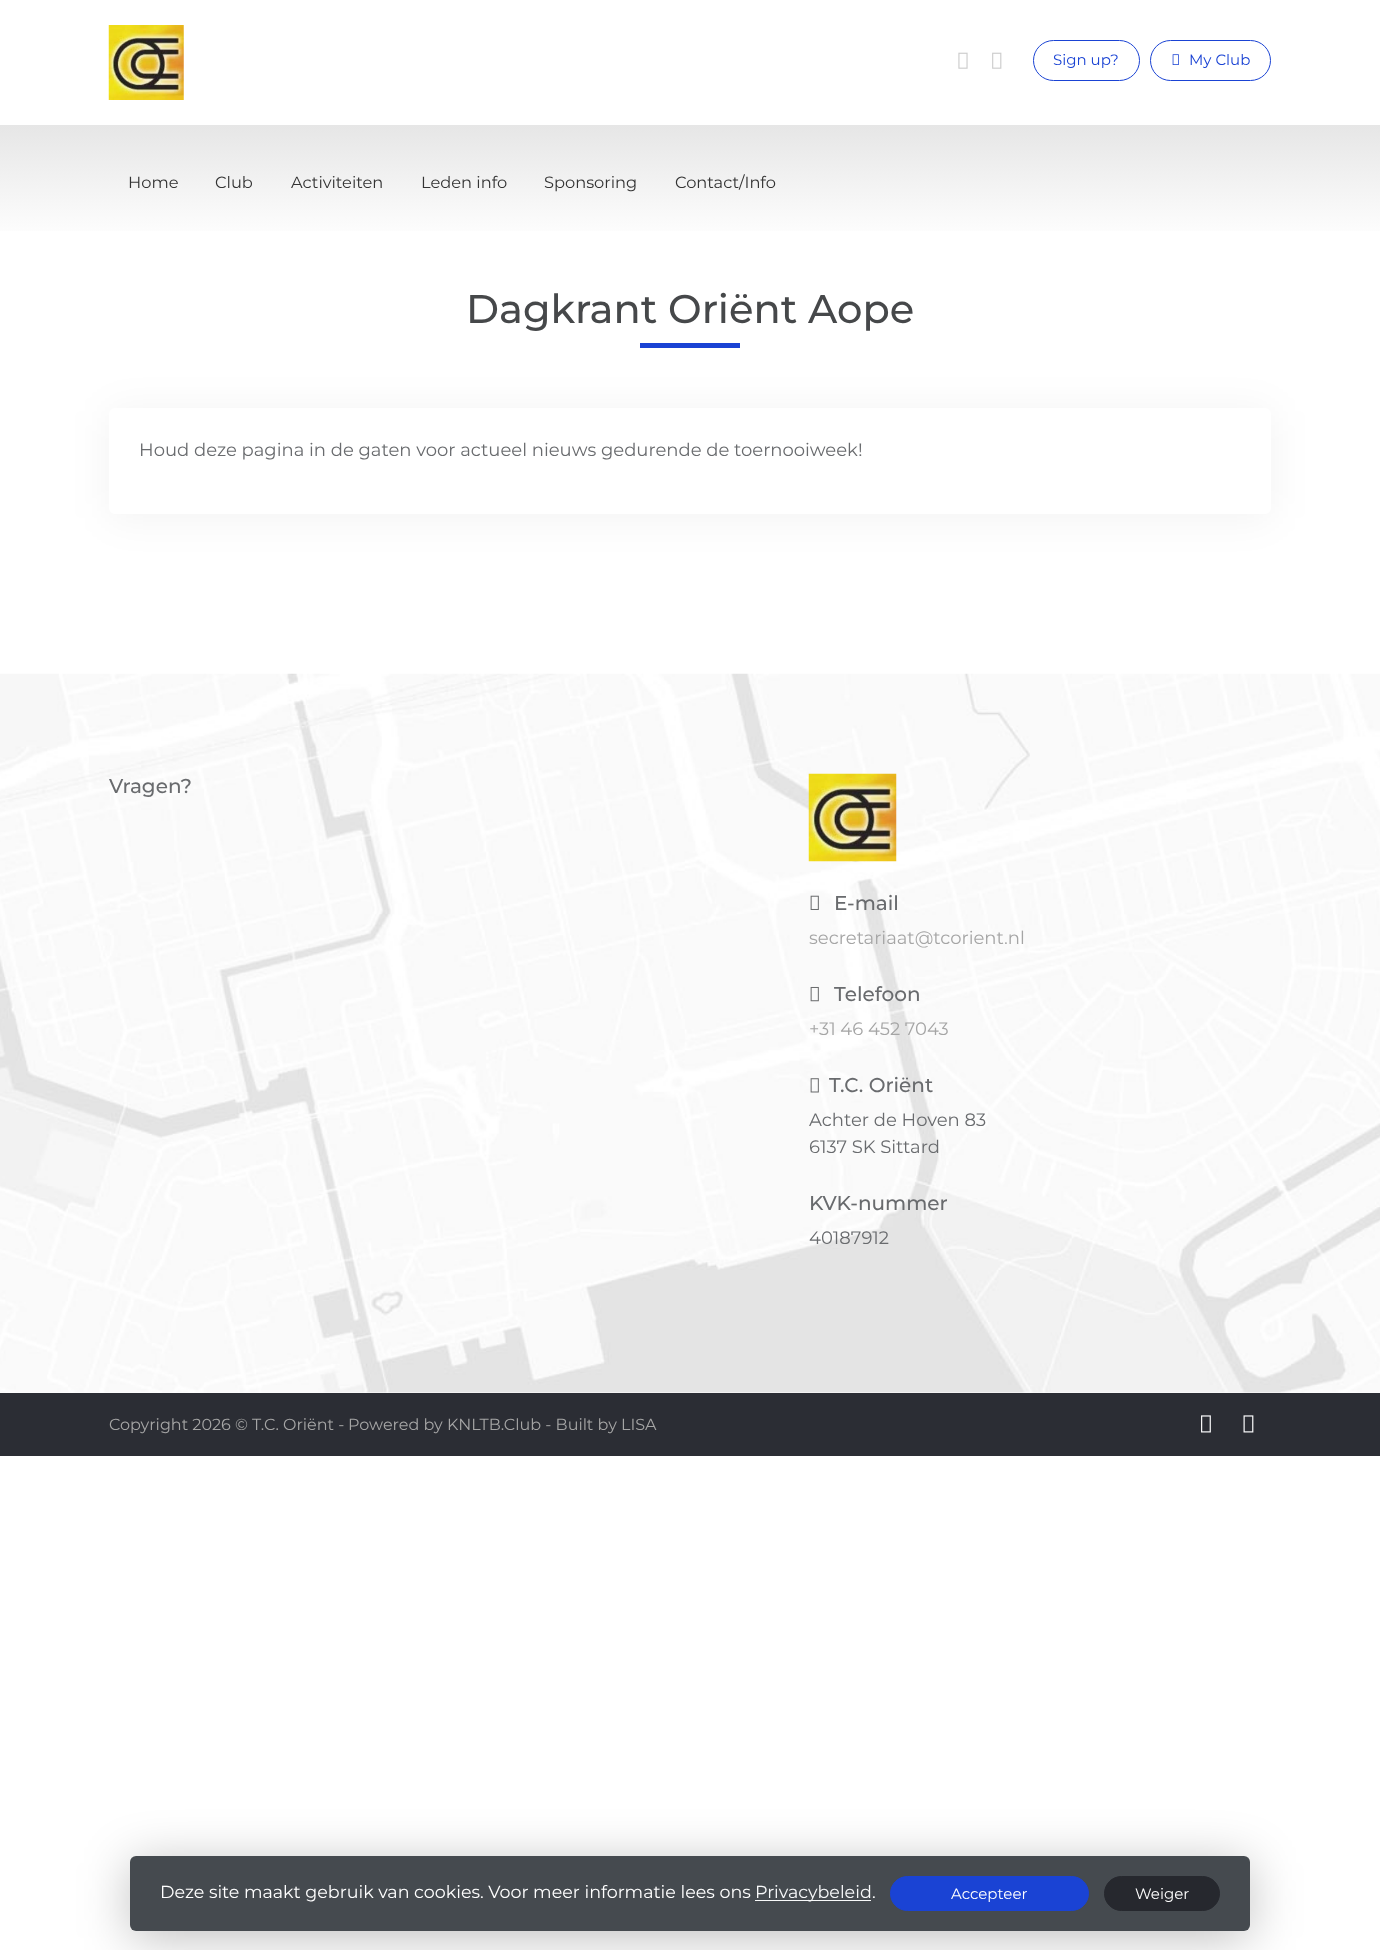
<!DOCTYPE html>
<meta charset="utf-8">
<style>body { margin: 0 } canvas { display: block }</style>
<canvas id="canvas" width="1380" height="1950"></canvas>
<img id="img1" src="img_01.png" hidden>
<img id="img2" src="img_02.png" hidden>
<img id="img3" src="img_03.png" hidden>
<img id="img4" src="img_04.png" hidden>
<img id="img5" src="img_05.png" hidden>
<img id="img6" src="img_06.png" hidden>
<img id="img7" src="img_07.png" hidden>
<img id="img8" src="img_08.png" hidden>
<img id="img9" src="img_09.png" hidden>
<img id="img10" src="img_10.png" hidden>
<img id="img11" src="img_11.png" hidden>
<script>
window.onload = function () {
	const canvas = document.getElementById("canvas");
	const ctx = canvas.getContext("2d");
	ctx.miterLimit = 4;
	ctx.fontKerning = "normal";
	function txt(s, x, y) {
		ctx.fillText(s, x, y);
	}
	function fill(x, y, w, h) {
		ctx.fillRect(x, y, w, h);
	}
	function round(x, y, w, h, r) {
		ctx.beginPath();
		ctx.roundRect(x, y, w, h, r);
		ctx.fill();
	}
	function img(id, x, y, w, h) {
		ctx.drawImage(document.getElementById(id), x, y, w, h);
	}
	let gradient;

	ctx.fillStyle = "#FFFFFF";
	fill(0, 0, 1380, 1950);
	img("img1", 108, 25, 76, 75);
	img("img2", 958, 52, 10, 17);
	img("img3", 992, 52, 10, 17);
	ctx.beginPath();
	ctx.roundRect(1033.5, 40.5, 106, 40, 20);
	ctx.strokeStyle = "#1A43D4";
	ctx.stroke();
	ctx.beginPath();
	ctx.roundRect(1150.5, 40.5, 120, 40, 20);
	ctx.stroke();
	img("img4", 1172, 54, 7, 11);
	gradient = ctx.createLinearGradient(690, 125, 690, 263);
	gradient.addColorStop(0, "#E6E6E6");
	gradient.addColorStop(0.85, "#FFFFFF");
	gradient.addColorStop(1, "#FFFFFF");
	ctx.fillStyle = gradient;
	fill(0, 125, 1380, 106);
	ctx.fillStyle = "#1A43D4";
	fill(640, 343, 100, 5);
	ctx.fillStyle = "rgba(0, 0, 0, 0.05)";
	ctx.filter = "blur(20px)";
	ctx.beginPath();
	ctx.roundRect(109, 411, 1162, 107, 6);
	ctx.fill();
	ctx.filter = "none";
	ctx.fillStyle = "#FFFFFF";
	round(109, 408, 1162, 106, 6);
	img("img5", 0, 673, 1380, 720);
	img("img6", 808, 773, 89, 89);
	img("img7", 810, 895, 9, 15);
	img("img8", 810, 986, 9, 16);
	img("img9", 810, 1078, 9, 15);
	ctx.fillStyle = "#2B2D34";
	fill(0, 1393, 1380, 63);
	img("img10", 1201, 1415, 10, 18);
	img("img11", 1243, 1415, 11, 18);
	ctx.save();
	ctx.beginPath();
	ctx.moveTo(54, 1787);
	ctx.lineTo(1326, 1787);
	ctx.lineTo(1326, 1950);
	ctx.lineTo(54, 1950);
	ctx.closePath();
	ctx.moveTo(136, 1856);
	ctx.lineTo(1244, 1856);
	ctx.bezierCurveTo(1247.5, 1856, 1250, 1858.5, 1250, 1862);
	ctx.lineTo(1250, 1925);
	ctx.bezierCurveTo(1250, 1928.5, 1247.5, 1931, 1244, 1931);
	ctx.lineTo(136, 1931);
	ctx.bezierCurveTo(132.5, 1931, 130, 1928.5, 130, 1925);
	ctx.lineTo(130, 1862);
	ctx.bezierCurveTo(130, 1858.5, 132.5, 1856, 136, 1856);
	ctx.closePath();
	ctx.clip("evenodd");
	ctx.fillStyle = "rgba(0, 0, 0, 0.25)";
	ctx.filter = "blur(25px)";
	ctx.beginPath();
	ctx.roundRect(130, 1863, 1120, 75, 6);
	ctx.fill();
	ctx.filter = "none";
	ctx.restore();
	ctx.fillStyle = "rgba(36, 42, 48, 0.85)";
	round(130, 1856, 1120, 75, 6);
	ctx.fillStyle = "#F8F9FA";
	fill(755, 1900, 116, 1);
	ctx.fillStyle = "#1A43D4";
	ctx.beginPath();
	ctx.roundRect(890.5, 1876.5, 198, 34, 17);
	ctx.fill();
	ctx.stroke();
	ctx.fillStyle = "#26282E";
	ctx.beginPath();
	ctx.roundRect(1104.5, 1876.5, 115, 34, 17);
	ctx.fill();
	ctx.strokeStyle = "#26282E";
	ctx.stroke();
	ctx.font = "15px Montserrat";
	ctx.fillStyle = "#1A43D4";
	txt("Sign up?", 1053, 65);
	txt("My Club", 1189, 65);
	ctx.font = "16.25px Montserrat";
	ctx.fillStyle = "#333333";
	txt("Home", 128, 188);
	txt("Club", 215, 188);
	txt("Activiteiten", 291, 188);
	txt("Leden info", 421, 188);
	txt("Sponsoring", 544, 188);
	txt("Contact/Info", 675, 188);
	ctx.font = "500 40px Montserrat";
	ctx.fillStyle = "#46484A";
	txt("Dagkrant Oriënt Aope", 466, 323);
	ctx.font = "18px Montserrat";
	ctx.fillStyle = "#696B6E";
	txt("Houd deze pagina in de gaten voor actueel nieuws gedurende de toernooiweek!", 139, 456);
	ctx.font = "500 20px Montserrat";
	txt("Vragen?", 109, 793);
	txt("E-mail", 834, 910);
	ctx.font = "18px Montserrat";
	ctx.fillStyle = "#A5A5A5";
	txt("secretariaat@tcorient.nl", 809, 944);
	ctx.font = "500 20px Montserrat";
	ctx.fillStyle = "#696B6E";
	txt("Telefoon", 834, 1001);
	ctx.font = "18px Montserrat";
	ctx.fillStyle = "#A5A5A5";
	txt("+31 46 452 7043", 809, 1035);
	ctx.font = "500 20px Montserrat";
	ctx.fillStyle = "#696B6E";
	txt("T.C. Oriënt", 829, 1092);
	ctx.font = "18px Montserrat";
	txt("Achter de Hoven 83", 809, 1126);
	txt("6137 SK Sittard", 809, 1153);
	ctx.font = "500 20px Montserrat";
	txt("KVK-nummer", 809, 1210);
	ctx.font = "18px Montserrat";
	txt("40187912", 809, 1244);
	ctx.font = "16px Montserrat";
	ctx.fillStyle = "#A5A5A5";
	txt("Copyright 2026 © T.C. Oriënt -", 109, 1430);
	txt("Powered by KNLTB.Club - Built by LISA", 348, 1430);
	ctx.font = "17.5px Montserrat";
	ctx.fillStyle = "#FFFFFF";
	txt("Deze site maakt gebruik van cookies. Voor meer informatie lees ons", 160, 1898);
	ctx.fillStyle = "#F8F9FA";
	txt("Privacybeleid", 755, 1898);
	ctx.fillStyle = "#FFFFFF";
	txt(".", 872, 1898);
	ctx.font = "15px Montserrat";
	txt("Accepteer", 951, 1899);
	txt("Weiger", 1135, 1899);
};
</script>
